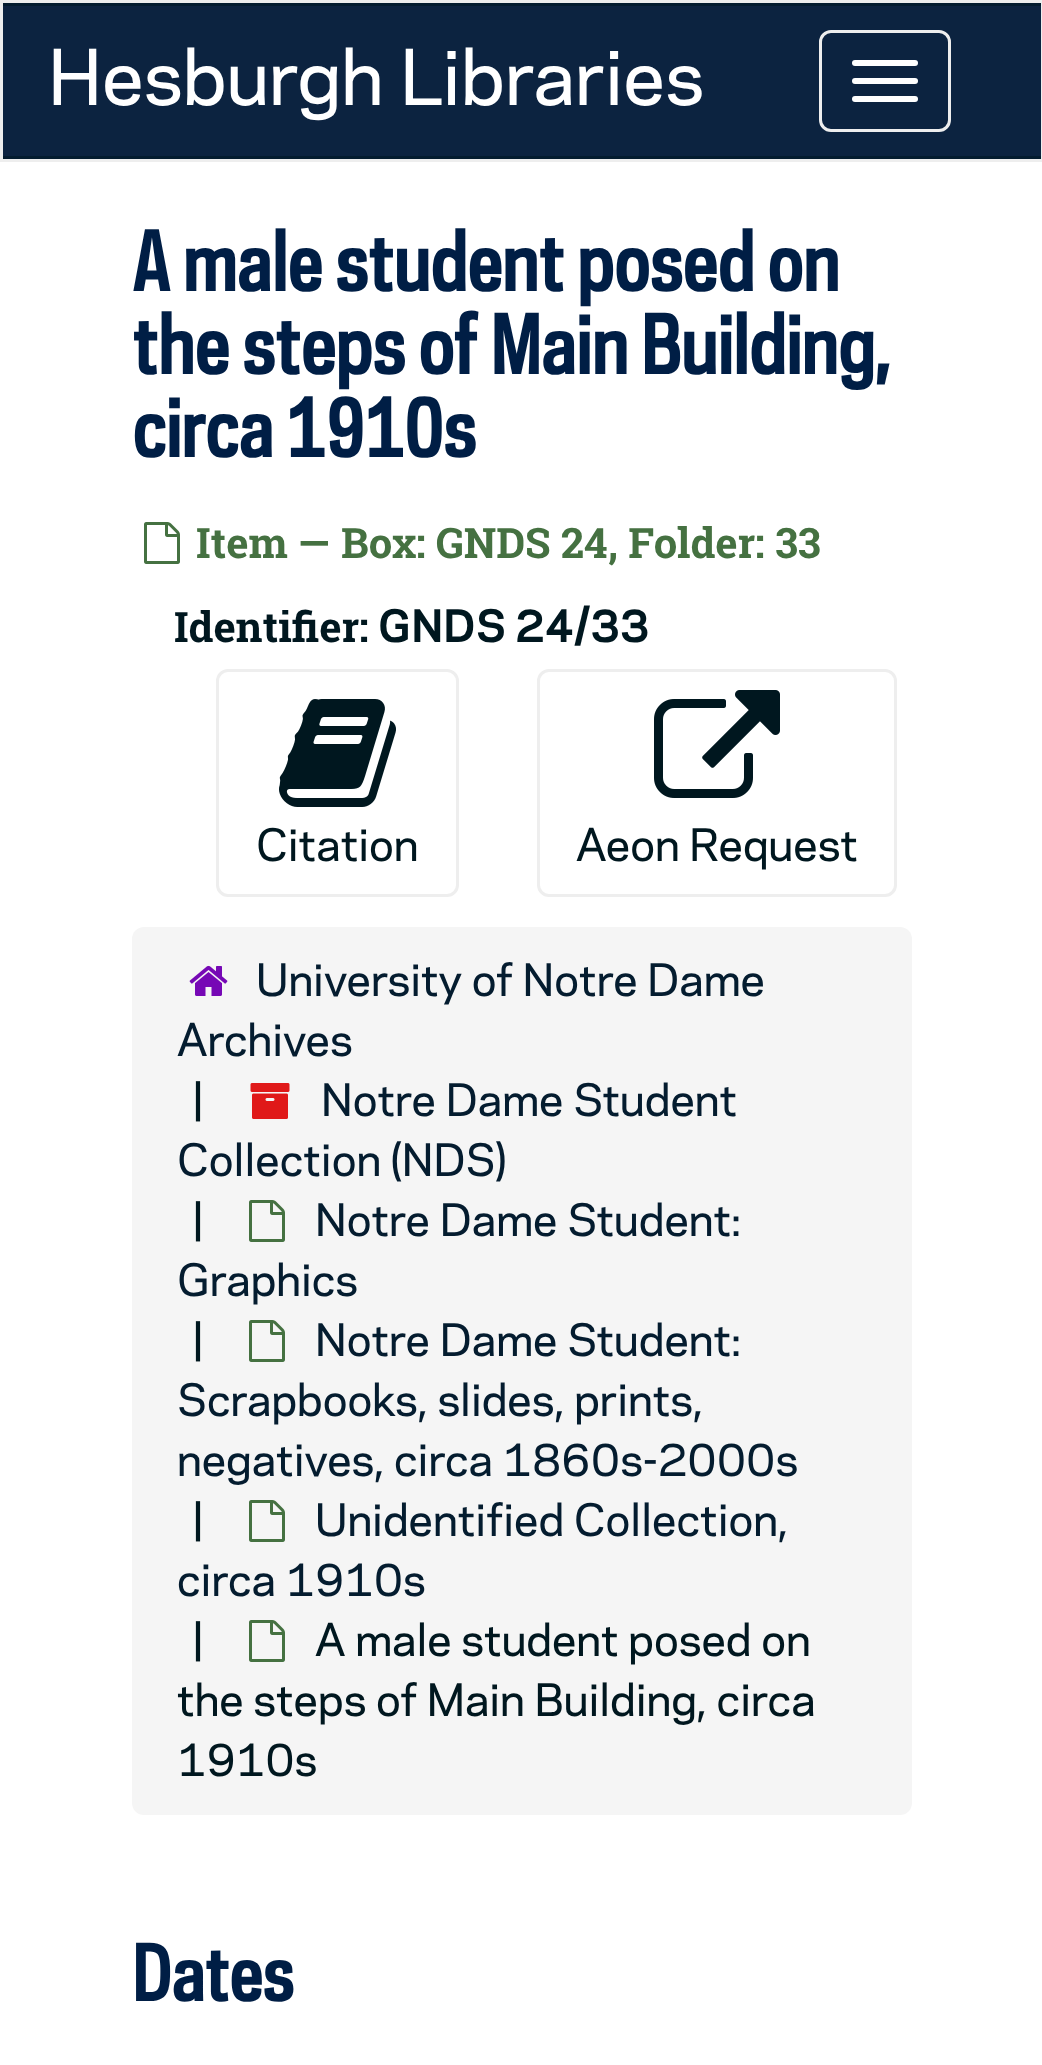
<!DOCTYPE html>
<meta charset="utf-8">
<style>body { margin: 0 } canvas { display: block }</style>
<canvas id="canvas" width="1042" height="2065"></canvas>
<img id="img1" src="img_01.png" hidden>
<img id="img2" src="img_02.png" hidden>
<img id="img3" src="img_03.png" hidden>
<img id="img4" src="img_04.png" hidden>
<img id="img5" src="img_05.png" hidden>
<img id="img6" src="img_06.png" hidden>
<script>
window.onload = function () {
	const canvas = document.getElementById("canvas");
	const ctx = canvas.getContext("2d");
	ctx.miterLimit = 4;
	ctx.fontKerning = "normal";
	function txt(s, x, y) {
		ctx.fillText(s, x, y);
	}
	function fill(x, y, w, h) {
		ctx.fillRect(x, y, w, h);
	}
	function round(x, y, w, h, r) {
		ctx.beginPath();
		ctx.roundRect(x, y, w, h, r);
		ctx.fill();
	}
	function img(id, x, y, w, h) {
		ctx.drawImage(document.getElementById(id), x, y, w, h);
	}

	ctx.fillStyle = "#FFFFFF";
	fill(0, 0, 1042, 2065);
	ctx.fillStyle = "#EEEEEE";
	fill(0, 0, 1042, 162);
	ctx.fillStyle = "#0C2340";
	fill(3, 6, 1038, 150);
	ctx.fillStyle = "#041C2F";
	fill(3, 3, 1038, 3);
	fill(3, 156, 1038, 3);
	ctx.beginPath();
	ctx.roundRect(820.5, 31.5, 129, 99, 10.5);
	ctx.strokeStyle = "#EEEEEE";
	ctx.lineWidth = 3;
	ctx.stroke();
	ctx.fillStyle = "#FFFFFF";
	round(852, 60, 66, 6, 3);
	round(852, 78, 66, 6, 3);
	round(852, 96, 66, 6, 3);
	img("img1", 144, 522, 36, 42);
	ctx.beginPath();
	ctx.roundRect(217.5, 670.5, 240, 225, 10.5);
	ctx.stroke();
	img("img2", 279, 699, 117, 108);
	ctx.beginPath();
	ctx.roundRect(538.5, 670.5, 357, 225, 10.5);
	ctx.stroke();
	img("img3", 654, 690, 126, 108);
	ctx.fillStyle = "#F5F5F5";
	round(132, 927, 780, 888, 12);
	img("img4", 189, 965, 39, 31);
	img("img5", 250, 1083, 40, 36);
	img("img6", 249, 1200, 36, 42);
	img("img6", 249, 1320, 36, 42);
	img("img6", 249, 1500, 36, 42);
	img("img6", 249, 1620, 36, 42);
	ctx.font = "72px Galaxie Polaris";
	ctx.fillStyle = "#FFFFFF";
	txt("Hesburgh Libraries", 48, 105);
	ctx.font = "bold 75.6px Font";
	ctx.fillStyle = "#001E45";
	txt("A male student posed on", 132, 291);
	txt("the steps of Main Building,", 132, 374);
	txt("circa 1910s", 132, 457);
	ctx.font = "bold 42px Roboto Slab";
	ctx.fillStyle = "#457141";
	txt("Item — Box: GNDS 24, Folder: 33", 196, 558);
	ctx.fillStyle = "#00171F";
	txt("Identifier:", 174, 642);
	ctx.font = "bold 42px Galaxie Polaris";
	txt("GNDS 24/33", 378, 642);
	ctx.font = "42px Galaxie Polaris";
	txt("Citation", 256, 861);
	txt("Aeon Request", 576, 861);
	ctx.fillStyle = "#041C2F";
	txt("University of Notre Dame", 256, 996);
	txt("Archives", 177, 1056);
	ctx.fillStyle = "#00171F";
	txt("|", 192, 1116);
	ctx.fillStyle = "#041C2F";
	txt("Notre Dame Student", 321, 1116);
	txt("Collection (NDS)", 177, 1176);
	ctx.fillStyle = "#00171F";
	txt("|", 192, 1236);
	ctx.fillStyle = "#041C2F";
	txt("Notre Dame Student:", 315, 1236);
	txt("Graphics", 177, 1296);
	ctx.fillStyle = "#00171F";
	txt("|", 192, 1356);
	ctx.fillStyle = "#041C2F";
	txt("Notre Dame Student:", 315, 1356);
	txt("Scrapbooks, slides, prints,", 177, 1416);
	txt("negatives, circa 1860s-2000s", 177, 1476);
	ctx.fillStyle = "#00171F";
	txt("|", 192, 1536);
	ctx.fillStyle = "#041C2F";
	txt("Unidentified Collection,", 315, 1536);
	txt("circa 1910s", 177, 1596);
	ctx.fillStyle = "#00171F";
	txt("|", 192, 1656);
	txt("A male student posed on", 315, 1656);
	txt("the steps of Main Building, circa", 177, 1716);
	txt("1910s", 177, 1776);
	ctx.font = "bold 72px Font";
	ctx.fillStyle = "#001E45";
	txt("Dates", 132, 2001);
};
</script>
